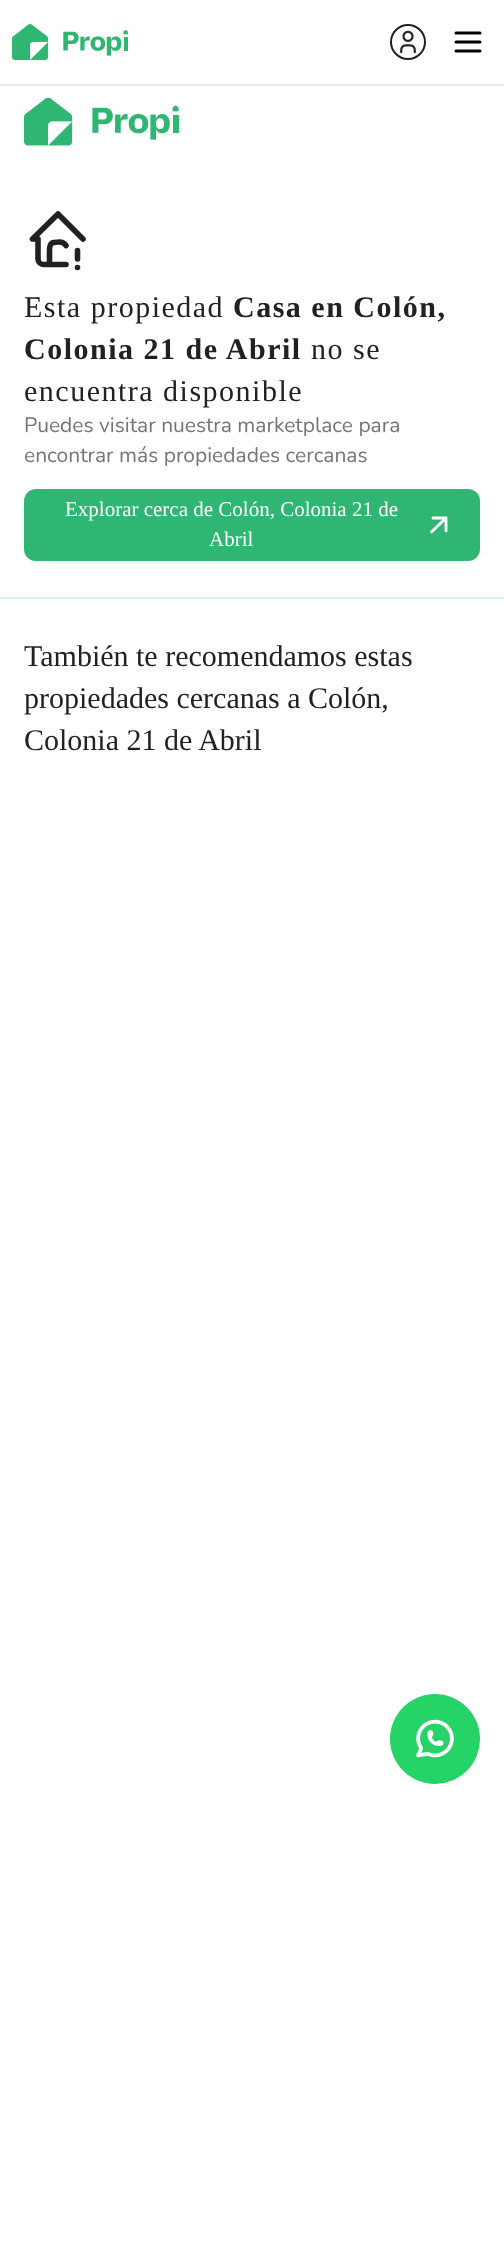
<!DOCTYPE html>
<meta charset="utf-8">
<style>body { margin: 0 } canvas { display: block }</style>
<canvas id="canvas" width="504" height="2263"></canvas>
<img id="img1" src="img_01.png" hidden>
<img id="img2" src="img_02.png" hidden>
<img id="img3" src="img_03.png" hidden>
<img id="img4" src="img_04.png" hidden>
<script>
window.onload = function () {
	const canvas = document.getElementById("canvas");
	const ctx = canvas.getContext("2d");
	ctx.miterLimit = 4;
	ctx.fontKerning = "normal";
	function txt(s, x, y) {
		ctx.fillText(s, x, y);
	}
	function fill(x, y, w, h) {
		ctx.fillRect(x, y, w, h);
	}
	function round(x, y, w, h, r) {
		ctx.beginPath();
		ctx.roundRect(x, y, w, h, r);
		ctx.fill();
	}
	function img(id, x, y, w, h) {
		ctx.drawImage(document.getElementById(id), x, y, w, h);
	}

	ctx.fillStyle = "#FFFFFF";
	fill(0, 0, 504, 2263);
	ctx.fillStyle = "#E5E7EB";
	fill(0, 84, 504, 2);
	img("img1", 12, 24, 116, 36);
	ctx.beginPath();
	ctx.arc(408, 42, 17, 0, Math.PI * 2);
	ctx.strokeStyle = "#212121";
	ctx.lineWidth = 2;
	ctx.stroke();
	img("img2", 400, 30, 16, 24);
	ctx.beginPath();
	ctx.moveTo(456, 33);
	ctx.lineTo(480, 33);
	ctx.moveTo(456, 42);
	ctx.lineTo(480, 42);
	ctx.moveTo(456, 51);
	ctx.lineTo(480, 51);
	ctx.strokeStyle = "#000000";
	ctx.lineWidth = 3;
	ctx.lineCap = "round";
	ctx.lineJoin = "round";
	ctx.stroke();
	img("img3", 24, 98, 155, 48);
	ctx.beginPath();
	ctx.moveTo(83, 239);
	ctx.lineTo(58, 214);
	ctx.lineTo(32.5, 239);
	ctx.lineTo(38, 239);
	ctx.lineTo(38, 259);
	ctx.bezierCurveTo(38, 262, 40.5, 264.5, 43.5, 264.5);
	ctx.lineTo(66, 264.5);
	ctx.moveTo(49.5, 264.5);
	ctx.lineTo(49.5, 250.5);
	ctx.bezierCurveTo(49.5, 242, 52.5, 242, 59.5, 242);
	ctx.bezierCurveTo(62.5, 242, 64.5, 243, 66, 245.5);
	ctx.moveTo(77.5, 250.5);
	ctx.lineTo(77.5, 259);
	ctx.moveTo(77.5, 267.5);
	ctx.lineTo(77.5, 267.5);
	ctx.strokeStyle = "#212121";
	ctx.lineWidth = 5.6;
	ctx.stroke();
	ctx.fillStyle = "#2FB672";
	round(24, 489, 456, 72, 12);
	ctx.beginPath();
	ctx.moveTo(446, 518);
	ctx.lineTo(431.5, 532);
	ctx.moveTo(433, 518);
	ctx.lineTo(446, 518);
	ctx.lineTo(446, 531);
	ctx.strokeStyle = "#FFFFFF";
	ctx.lineWidth = 2.9;
	ctx.stroke();
	ctx.fillStyle = "#D5F0E3";
	fill(0, 597, 504, 2);
	ctx.fillStyle = "#25D366";
	ctx.beginPath();
	ctx.arc(435, 1739, 45, 0, Math.PI * 2);
	ctx.fill();
	img("img4", 416, 1719, 38, 39);
	ctx.letterSpacing = "1.5px";
	ctx.font = "30px Liberation Serif";
	ctx.fillStyle = "#212121";
	txt("Esta propiedad", 24, 317);
	ctx.font = "bold 30px Liberation Serif";
	txt("Casa en Colón,", 233, 317);
	txt("Colonia 21 de Abril", 24, 359);
	ctx.font = "30px Liberation Serif";
	txt("no se", 311, 359);
	txt("encuentra disponible", 24, 401);
	ctx.letterSpacing = "0px";
	ctx.font = "21px Nunito";
	ctx.fillStyle = "#757575";
	txt("Puedes visitar nuestra marketplace para", 24, 432);
	txt("encontrar más propiedades cercanas", 24, 462);
	ctx.font = "21px Liberation Serif";
	ctx.fillStyle = "#FFFFFF";
	txt("Explorar cerca de Colón, Colonia 21 de", 65, 516);
	txt("Abril", 209, 546);
	ctx.font = "30px Liberation Serif";
	ctx.fillStyle = "#212121";
	txt("También te recomendamos estas", 24, 666);
	txt("propiedades cercanas a Colón,", 24, 708);
	txt("Colonia 21 de Abril", 24, 750);
};
</script>
